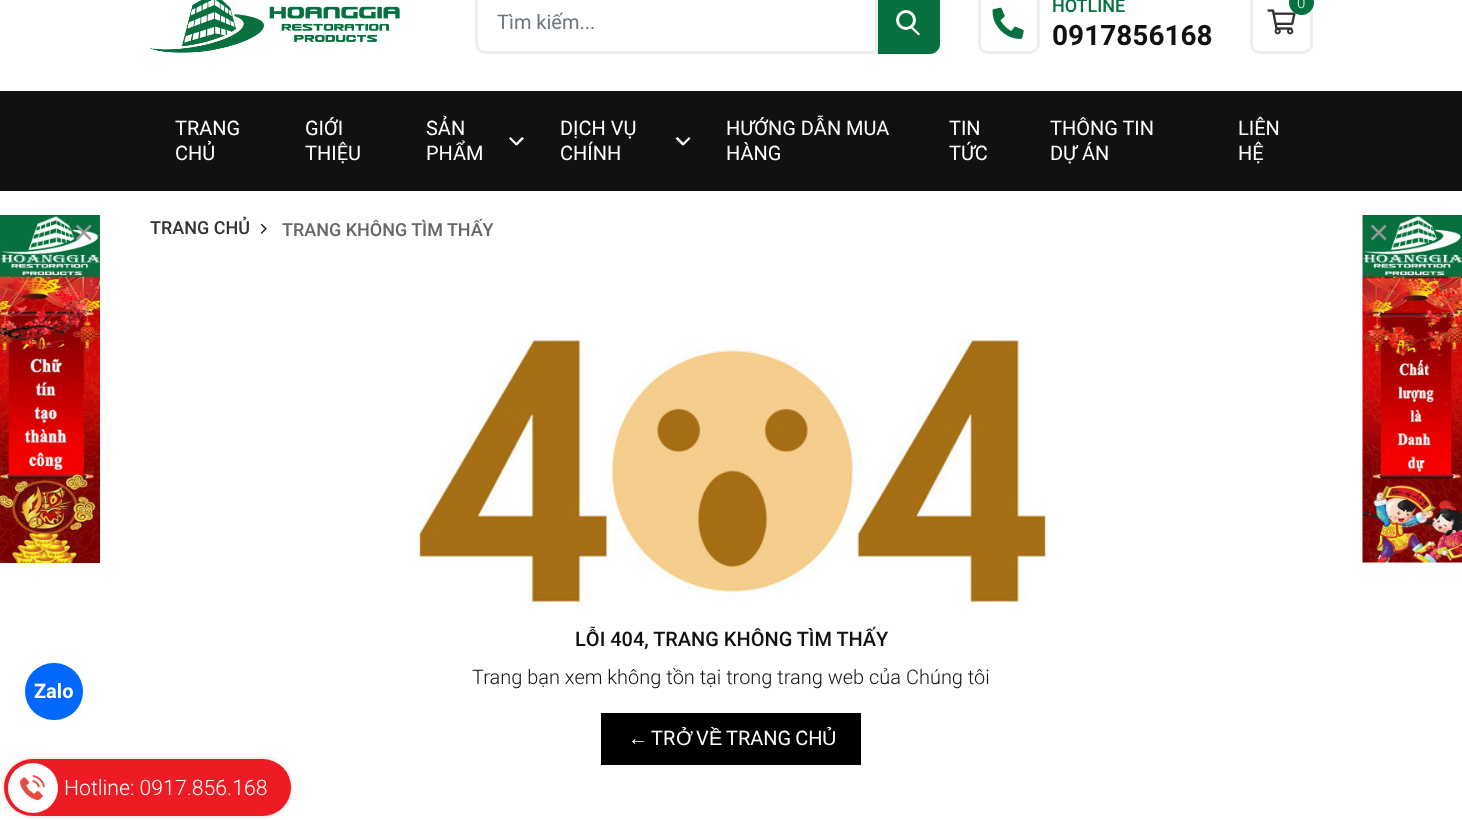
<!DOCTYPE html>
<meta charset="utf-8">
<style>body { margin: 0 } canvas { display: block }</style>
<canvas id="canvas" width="1462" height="820"></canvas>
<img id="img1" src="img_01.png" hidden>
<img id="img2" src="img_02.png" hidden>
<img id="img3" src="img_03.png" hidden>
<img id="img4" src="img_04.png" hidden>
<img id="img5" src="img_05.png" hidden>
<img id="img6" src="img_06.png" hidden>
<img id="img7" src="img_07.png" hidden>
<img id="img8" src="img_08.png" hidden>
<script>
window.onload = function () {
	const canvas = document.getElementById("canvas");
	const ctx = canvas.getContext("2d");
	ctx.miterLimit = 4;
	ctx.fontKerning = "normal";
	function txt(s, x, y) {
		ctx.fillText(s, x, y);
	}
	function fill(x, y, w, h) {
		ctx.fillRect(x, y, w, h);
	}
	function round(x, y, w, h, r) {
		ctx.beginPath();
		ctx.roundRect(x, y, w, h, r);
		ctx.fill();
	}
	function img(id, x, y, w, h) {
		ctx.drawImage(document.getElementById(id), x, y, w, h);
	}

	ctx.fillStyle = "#FFFFFF";
	fill(0, 0, 1462, 820);
	img("img1", 150, 0, 250, 53);
	ctx.beginPath();
	ctx.moveTo(485, -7.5);
	ctx.lineTo(876.5, -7.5);
	ctx.lineTo(876.5, 52.5);
	ctx.lineTo(485, 52.5);
	ctx.bezierCurveTo(480.5, 52.5, 476.5, 48.5, 476.5, 44);
	ctx.lineTo(476.5, 1);
	ctx.bezierCurveTo(476.5, -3.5, 480.5, -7.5, 485, -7.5);
	ctx.closePath();
	ctx.strokeStyle = "#EEEEEE";
	ctx.lineWidth = 3;
	ctx.stroke();
	ctx.fillStyle = "#06703F";
	ctx.beginPath();
	ctx.moveTo(878, -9);
	ctx.lineTo(930, -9);
	ctx.bezierCurveTo(935.5, -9, 940, -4.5, 940, 1);
	ctx.lineTo(940, 44);
	ctx.bezierCurveTo(940, 49.5, 935.5, 54, 930, 54);
	ctx.lineTo(878, 54);
	ctx.closePath();
	ctx.fill();
	ctx.beginPath();
	ctx.arc(906, 20, 8.5, 0, Math.PI * 2);
	ctx.strokeStyle = "#FFFFFF";
	ctx.stroke();
	ctx.fillStyle = "#FFFFFF";
	ctx.beginPath();
	ctx.moveTo(913, 27);
	ctx.lineTo(920, 34);
	ctx.lineTo(918.5, 35.5);
	ctx.lineTo(911, 28.5);
	ctx.closePath();
	ctx.fill();
	ctx.beginPath();
	ctx.roundRect(979.5, -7.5, 59, 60, 8.5);
	ctx.strokeStyle = "#EEEEEE";
	ctx.stroke();
	img("img2", 992, 7, 32, 32);
	ctx.beginPath();
	ctx.roundRect(1251.5, -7.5, 60, 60, 8.5);
	ctx.stroke();
	img("img3", 1267, 9, 29, 26);
	ctx.fillStyle = "#06703F";
	ctx.beginPath();
	ctx.arc(1301.5, 2.5, 12.5, 0, Math.PI * 2);
	ctx.fill();
	ctx.fillStyle = "#111111";
	fill(0, 91, 1462, 100);
	ctx.fillStyle = "#FFFFFF";
	ctx.beginPath();
	ctx.moveTo(509, 138.5);
	ctx.lineTo(510.5, 137);
	ctx.lineTo(517.5, 144);
	ctx.lineTo(516, 145.5);
	ctx.closePath();
	ctx.fill();
	ctx.beginPath();
	ctx.moveTo(522, 137);
	ctx.lineTo(524, 138.5);
	ctx.lineTo(517, 145.5);
	ctx.lineTo(515, 144);
	ctx.closePath();
	ctx.fill();
	ctx.beginPath();
	ctx.moveTo(675.5, 138.5);
	ctx.lineTo(677.5, 137);
	ctx.lineTo(684.5, 144);
	ctx.lineTo(682.5, 145.5);
	ctx.closePath();
	ctx.fill();
	ctx.beginPath();
	ctx.moveTo(689, 137);
	ctx.lineTo(690.5, 138.5);
	ctx.lineTo(683.5, 145.5);
	ctx.lineTo(682, 144);
	ctx.closePath();
	ctx.fill();
	img("img4", 0, 215, 100, 348);
	ctx.fillStyle = "#999999";
	ctx.beginPath();
	ctx.moveTo(76, 238.5);
	ctx.lineTo(90, 224.5);
	ctx.lineTo(91.5, 226.5);
	ctx.lineTo(77.5, 240.5);
	ctx.closePath();
	ctx.fill();
	ctx.beginPath();
	ctx.moveTo(77.5, 224.5);
	ctx.lineTo(91.5, 238.5);
	ctx.lineTo(90, 240.5);
	ctx.lineTo(76, 226.5);
	ctx.closePath();
	ctx.fill();
	img("img5", 260, 223, 7, 11);
	img("img6", 1362, 215, 100, 348);
	ctx.beginPath();
	ctx.moveTo(1371, 238.5);
	ctx.lineTo(1385, 224.5);
	ctx.lineTo(1386.5, 226.5);
	ctx.lineTo(1372.5, 240.5);
	ctx.closePath();
	ctx.fill();
	ctx.beginPath();
	ctx.moveTo(1372.5, 224.5);
	ctx.lineTo(1386.5, 238.5);
	ctx.lineTo(1385, 240.5);
	ctx.lineTo(1371, 226.5);
	ctx.closePath();
	ctx.fill();
	ctx.fillStyle = "#0068FF";
	round(25, 663, 58, 57, 28.5);
	img("img7", 417, 339, 631, 268);
	ctx.fillStyle = "#000000";
	fill(601, 713, 260, 52);
	ctx.fillStyle = "rgba(0, 0, 0, 0.2)";
	ctx.filter = "blur(2px)";
	ctx.beginPath();
	ctx.roundRect(4, 759, 287, 57, 28.5);
	ctx.fill();
	ctx.filter = "none";
	ctx.fillStyle = "#ED1C24";
	round(4, 759, 287, 57, 28.5);
	ctx.fillStyle = "#FFFFFF";
	ctx.beginPath();
	ctx.arc(33, 788, 25, 0, Math.PI * 2);
	ctx.fill();
	img("img8", 20, 775, 25, 25);
	ctx.font = "20px Roboto";
	ctx.fillStyle = "#6C757D";
	txt("Tìm kiếm...", 497, 29);
	ctx.font = "500 18px Roboto";
	ctx.fillStyle = "#06703F";
	txt("HOTLINE", 1052, 12);
	ctx.font = "bold 28px Roboto";
	ctx.fillStyle = "#111111";
	txt("0917856168", 1052, 45);
	ctx.font = "300 15px Roboto";
	ctx.fillStyle = "#FFFFFF";
	txt("0", 1297, 8);
	ctx.font = "20px Roboto";
	txt("TRANG", 175, 135);
	txt("CHỦ", 175, 160);
	txt("GIỚI", 305, 135);
	txt("THIỆU", 305, 160);
	txt("SẢN", 426, 135);
	txt("PHẨM", 426, 160);
	txt("DỊCH VỤ", 560, 135);
	txt("CHÍNH", 560, 160);
	txt("HƯỚNG DẪN MUA", 726, 135);
	txt("HÀNG", 726, 160);
	txt("TIN", 949, 135);
	txt("TỨC", 949, 160);
	txt("THÔNG TIN", 1050, 135);
	txt("DỰ ÁN", 1050, 160);
	txt("LIÊN", 1238, 135);
	txt("HỆ", 1238, 160);
	ctx.font = "500 18px Roboto";
	ctx.fillStyle = "#333333";
	txt("TRANG CHỦ", 150, 234);
	ctx.fillStyle = "#666666";
	txt("TRANG KHÔNG TÌM THẤY", 282, 236);
	ctx.font = "bold 20px Roboto";
	ctx.fillStyle = "#FFFFFF";
	txt("Zalo", 34, 698);
	ctx.font = "500 20px Roboto";
	ctx.fillStyle = "#111111";
	txt("LỖI 404, TRANG KHÔNG TÌM THẤY", 575, 646);
	ctx.font = "300 20px Roboto";
	txt("Trang bạn xem không tồn tại trong trang web của Chúng tôi", 472, 684);
	ctx.font = "20px Liberation Sans";
	ctx.fillStyle = "#FFFFFF";
	txt("←", 628, 745);
	ctx.font = "20px Roboto";
	txt("TR", 651, 745);
	ctx.font = "20px Liberation Sans";
	txt("Ở", 676, 745);
	ctx.font = "20px Roboto";
	txt("V", 696, 745);
	ctx.font = "20px Liberation Sans";
	txt("Ề", 709, 745);
	ctx.wordSpacing = "-1px";
	ctx.font = "20px Roboto";
	txt("TRANG CH", 726, 745);
	ctx.wordSpacing = "0px";
	ctx.font = "20px Liberation Sans";
	txt("Ủ", 822, 745);
	ctx.font = "300 21.25px Roboto";
	txt("Hotline: 0917.856.168", 64, 795);
};
</script>
